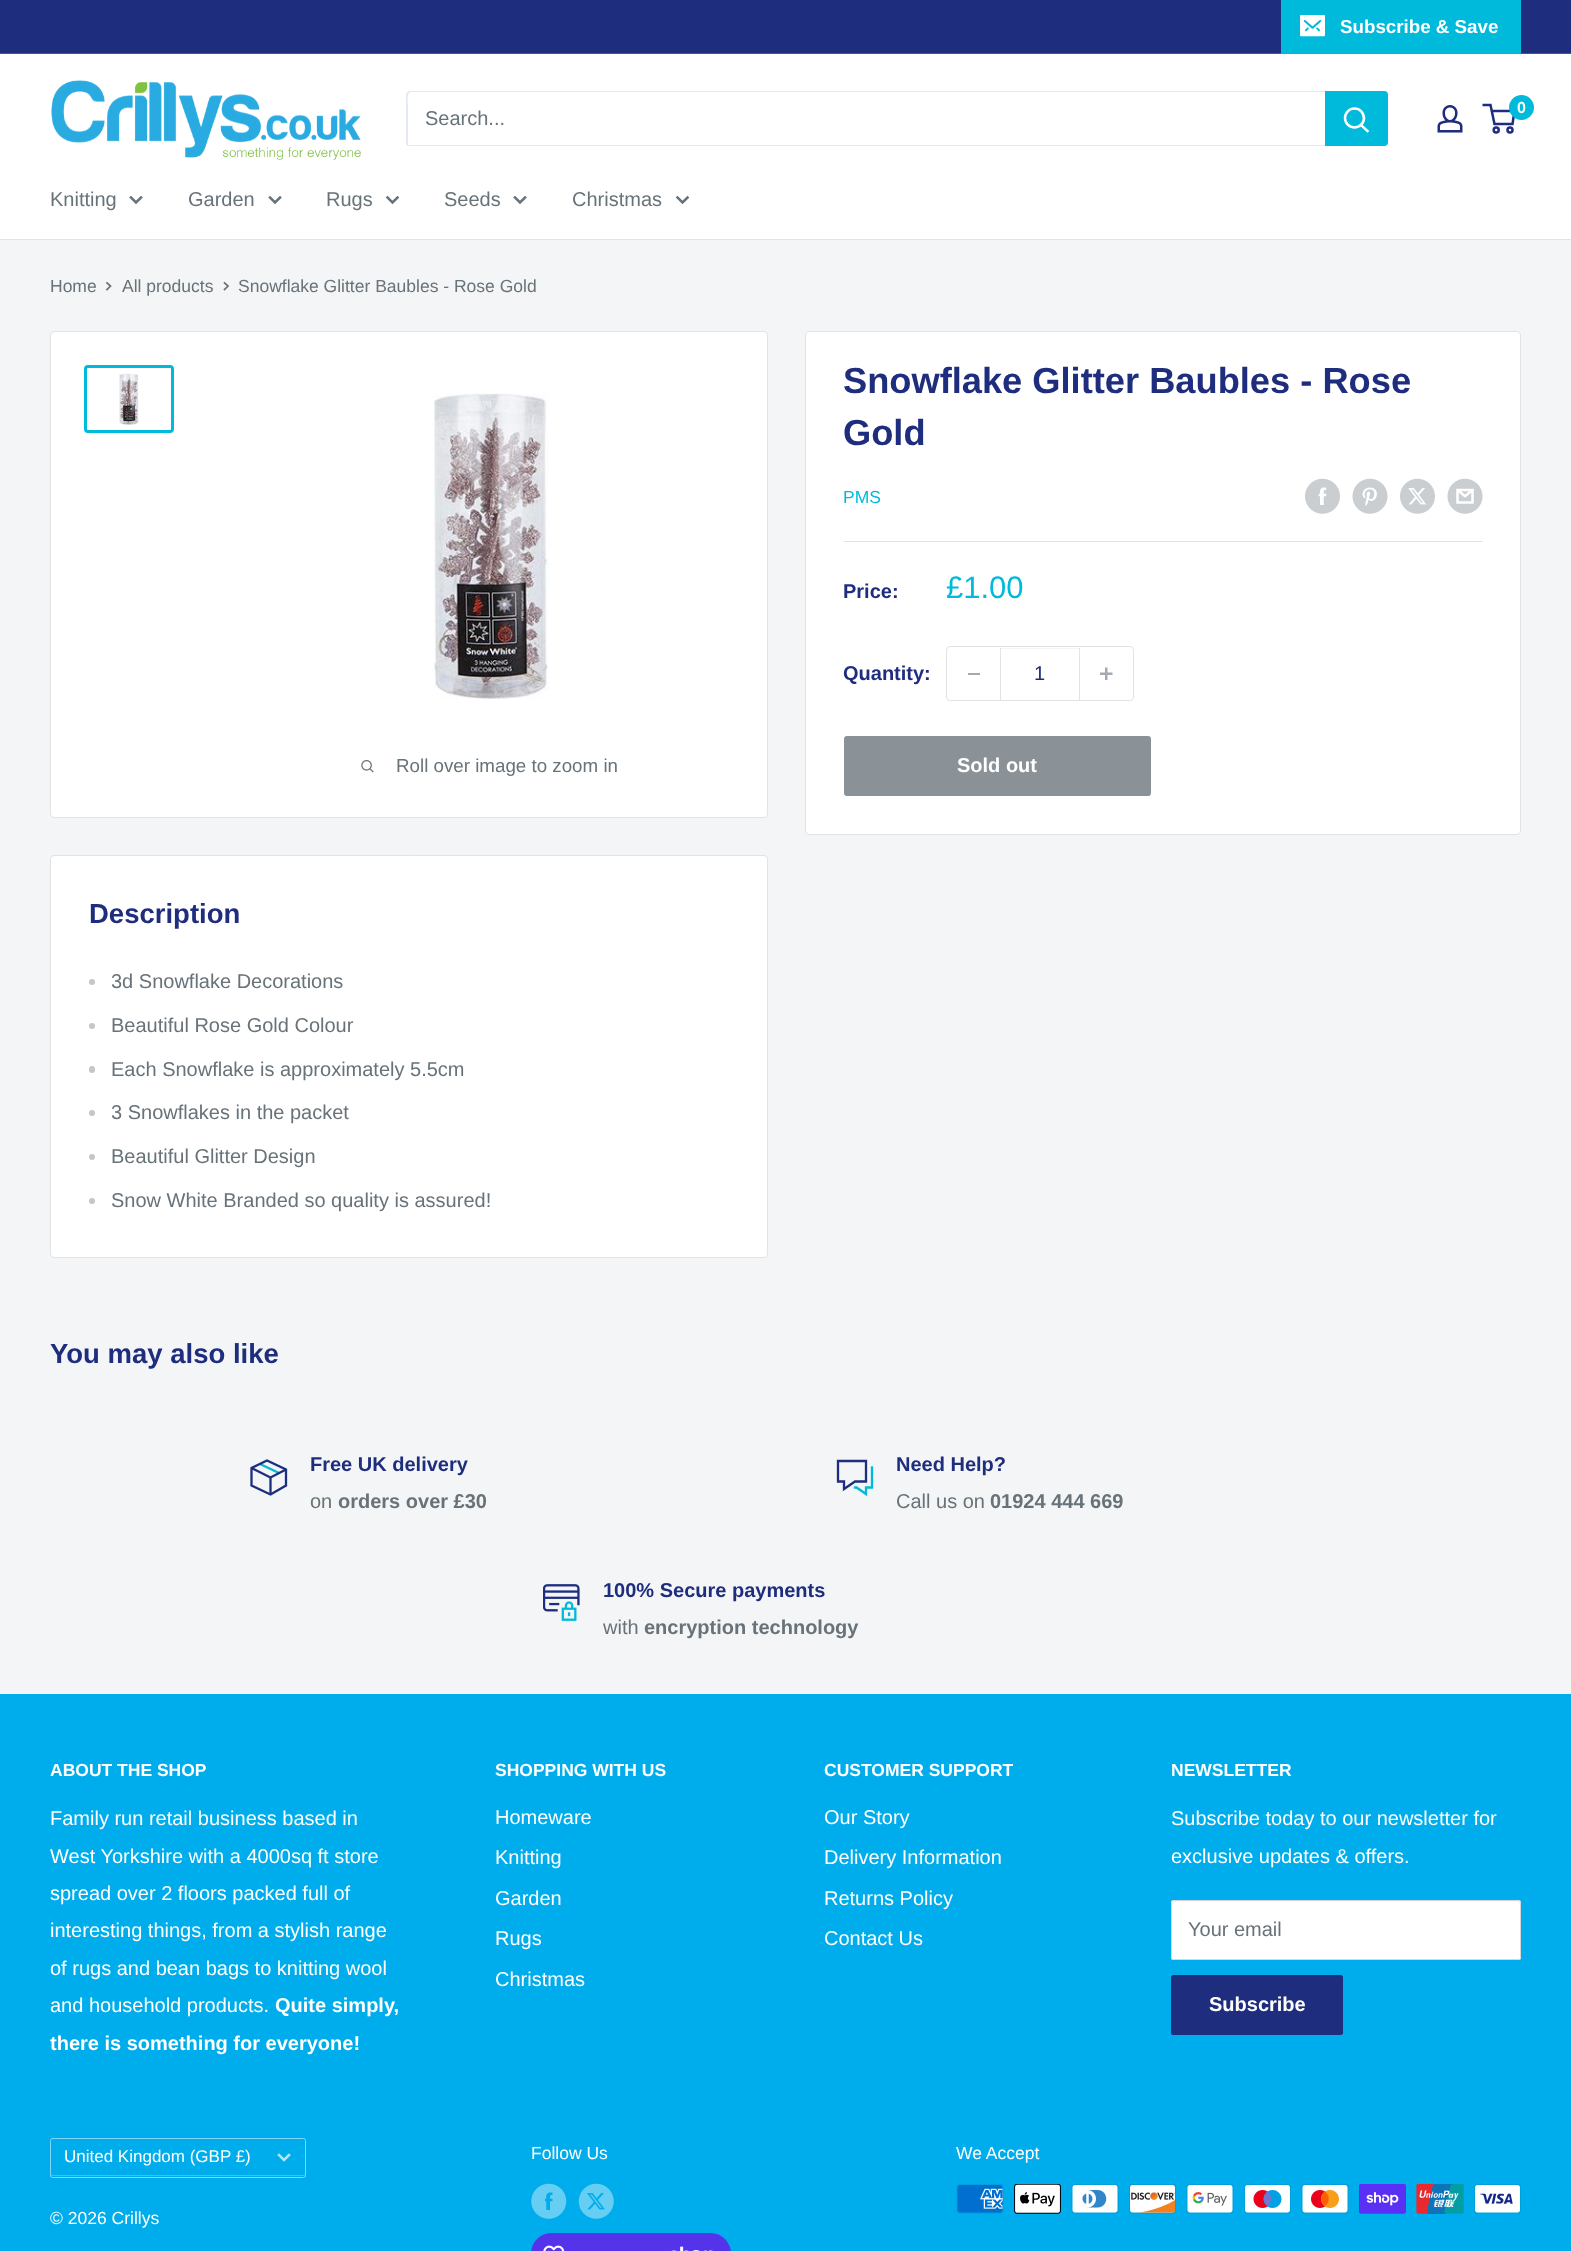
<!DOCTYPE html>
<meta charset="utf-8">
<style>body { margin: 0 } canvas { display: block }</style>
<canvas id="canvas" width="1571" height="2251"></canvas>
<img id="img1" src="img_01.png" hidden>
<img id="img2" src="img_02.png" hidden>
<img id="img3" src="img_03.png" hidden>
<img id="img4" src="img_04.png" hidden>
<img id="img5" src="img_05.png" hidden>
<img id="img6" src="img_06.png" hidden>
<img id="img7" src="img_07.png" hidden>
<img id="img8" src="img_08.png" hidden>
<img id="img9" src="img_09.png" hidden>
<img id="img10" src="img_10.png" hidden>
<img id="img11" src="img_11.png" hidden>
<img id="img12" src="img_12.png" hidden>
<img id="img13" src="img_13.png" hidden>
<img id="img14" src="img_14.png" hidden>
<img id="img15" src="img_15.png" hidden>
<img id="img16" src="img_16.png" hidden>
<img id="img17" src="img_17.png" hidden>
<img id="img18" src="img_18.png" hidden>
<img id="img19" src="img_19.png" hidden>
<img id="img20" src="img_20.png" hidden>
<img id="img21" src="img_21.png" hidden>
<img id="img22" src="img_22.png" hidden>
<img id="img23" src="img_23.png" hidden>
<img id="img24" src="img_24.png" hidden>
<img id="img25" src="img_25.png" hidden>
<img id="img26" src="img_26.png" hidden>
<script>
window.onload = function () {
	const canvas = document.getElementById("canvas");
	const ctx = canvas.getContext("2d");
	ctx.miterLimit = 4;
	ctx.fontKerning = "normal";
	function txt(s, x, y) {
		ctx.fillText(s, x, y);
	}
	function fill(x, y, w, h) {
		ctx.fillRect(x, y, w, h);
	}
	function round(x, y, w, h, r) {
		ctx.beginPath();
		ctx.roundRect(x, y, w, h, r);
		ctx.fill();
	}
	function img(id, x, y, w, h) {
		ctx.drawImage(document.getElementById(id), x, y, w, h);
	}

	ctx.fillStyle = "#F3F5F6";
	fill(0, 0, 1571, 2251);
	ctx.fillStyle = "#1E2D7D";
	fill(0, 0, 1571, 53);
	ctx.fillStyle = "#46549F";
	fill(0, 53, 1571, 1);
	ctx.fillStyle = "#00BADB";
	ctx.beginPath();
	ctx.moveTo(1281, 1);
	ctx.lineTo(1281, 54);
	ctx.lineTo(1521, 54);
	ctx.lineTo(1521, 52);
	ctx.lineTo(1281, 52);
	ctx.closePath();
	ctx.fill();
	fill(1281, 0, 240, 52);
	img("img1", 1300, 15, 25, 22);
	ctx.fillStyle = "#FFFFFF";
	fill(0, 54, 1571, 185);
	img("img2", 51, 80, 310, 80);
	img("img3", 1437, 105, 26, 28);
	ctx.beginPath();
	ctx.arc(1496.2, 130, 2.5, 0, Math.PI * 2);
	ctx.strokeStyle = "#1E2D7D";
	ctx.lineWidth = 2.5;
	ctx.stroke();
	ctx.beginPath();
	ctx.arc(1510, 130, 2.5, 0, Math.PI * 2);
	ctx.stroke();
	ctx.beginPath();
	ctx.moveTo(1491.5, 111);
	ctx.lineTo(1514.5, 111);
	ctx.lineTo(1512.5, 124);
	ctx.lineTo(1494.5, 124);
	ctx.lineTo(1490.5, 105);
	ctx.lineTo(1482.5, 105);
	ctx.stroke();
	ctx.fillStyle = "#00BADB";
	ctx.beginPath();
	ctx.arc(1521.5, 107.5, 12.5, 0, Math.PI * 2);
	ctx.fill();
	ctx.fillStyle = "#E3E7FA";
	ctx.beginPath();
	ctx.moveTo(407, 144);
	ctx.bezierCurveTo(407, 145, 409, 146, 410, 146);
	ctx.lineTo(1384, 146);
	ctx.bezierCurveTo(1386, 146, 1388, 144, 1388, 142);
	ctx.lineTo(1388, 95);
	ctx.bezierCurveTo(1388, 93, 1387, 92, 1385, 91);
	ctx.bezierCurveTo(1386, 92, 1386, 93, 1386, 94);
	ctx.lineTo(1386, 141);
	ctx.bezierCurveTo(1386, 143, 1385, 145, 1382, 145);
	ctx.lineTo(409, 145);
	ctx.closePath();
	ctx.fill();
	ctx.fillStyle = "rgba(163, 175, 239, 0.3)";
	ctx.beginPath();
	ctx.moveTo(411, 92);
	ctx.lineTo(1385, 92);
	ctx.lineTo(1387, 93);
	ctx.bezierCurveTo(1387, 92, 1385, 91, 1384, 91);
	ctx.lineTo(410, 91);
	ctx.bezierCurveTo(408, 91, 406, 93, 406, 95);
	ctx.lineTo(406, 142);
	ctx.bezierCurveTo(406, 144, 407, 145, 408, 146);
	ctx.lineTo(408, 104);
	ctx.bezierCurveTo(408, 103, 406, 92, 411, 92);
	ctx.closePath();
	ctx.fill();
	ctx.fillStyle = "#00BADB";
	ctx.beginPath();
	ctx.roundRect(1325, 91, 63, 55, [0, 4, 4, 0]);
	ctx.fill();
	ctx.beginPath();
	ctx.moveTo(1367.5, 131);
	ctx.lineTo(1361, 125);
	ctx.strokeStyle = "#FFFFFF";
	ctx.lineCap = "square";
	ctx.stroke();
	ctx.beginPath();
	ctx.arc(1354.5, 118, 9.5, 0, Math.PI * 2);
	ctx.stroke();
	ctx.fillStyle = "#E1E3E4";
	fill(0, 239, 1571, 1);
	ctx.beginPath();
	ctx.moveTo(141, 197.5);
	ctx.lineTo(136, 202.5);
	ctx.lineTo(131, 197.5);
	ctx.strokeStyle = "#677279";
	ctx.stroke();
	ctx.beginPath();
	ctx.moveTo(280, 197.5);
	ctx.lineTo(275, 202.5);
	ctx.lineTo(270, 197.5);
	ctx.stroke();
	ctx.beginPath();
	ctx.moveTo(397.5, 197.5);
	ctx.lineTo(392.5, 202.5);
	ctx.lineTo(387.5, 197.5);
	ctx.stroke();
	ctx.beginPath();
	ctx.moveTo(525, 197.5);
	ctx.lineTo(520, 202.5);
	ctx.lineTo(515, 197.5);
	ctx.stroke();
	ctx.beginPath();
	ctx.moveTo(687.5, 197.5);
	ctx.lineTo(682.5, 202.5);
	ctx.lineTo(677.5, 197.5);
	ctx.stroke();
	ctx.beginPath();
	ctx.moveTo(107, 283);
	ctx.lineTo(110.5, 286);
	ctx.lineTo(107, 289.5);
	ctx.lineWidth = 1.7;
	ctx.stroke();
	ctx.beginPath();
	ctx.moveTo(224.5, 283);
	ctx.lineTo(228, 286);
	ctx.lineTo(224.5, 289.5);
	ctx.stroke();
	ctx.fillStyle = "#FFFFFF";
	ctx.beginPath();
	ctx.roundRect(50.5, 331.5, 717, 486, 3.5);
	ctx.fill();
	ctx.strokeStyle = "#E1E3E4";
	ctx.lineWidth = 1;
	ctx.stroke();
	ctx.beginPath();
	ctx.roundRect(85.5, 366.5, 87, 65, 2.5);
	ctx.strokeStyle = "#00BADB";
	ctx.lineWidth = 3;
	ctx.stroke();
	img("img4", 119, 373, 20, 52);
	img("img5", 434, 393, 115, 307);
	img("img6", 361, 760, 13, 13);
	ctx.beginPath();
	ctx.roundRect(805.5, 331.5, 715, 503, 3.5);
	ctx.fill();
	ctx.strokeStyle = "#E1E3E4";
	ctx.lineWidth = 1;
	ctx.stroke();
	img("img7", 1305, 478, 35, 36);
	img("img8", 1352, 478, 36, 36);
	img("img9", 1400, 478, 35, 36);
	img("img10", 1447, 478, 36, 36);
	ctx.fillStyle = "#E1E3E4";
	fill(844, 541, 639, 1);
	ctx.beginPath();
	ctx.roundRect(946.5, 646.5, 187, 54, 3.5);
	ctx.stroke();
	ctx.fillStyle = "#A4AAAF";
	fill(968, 673, 12, 2);
	ctx.fillStyle = "#F3F4F4";
	fill(1001, 648, 78, 1);
	ctx.fillStyle = "#E1E3E4";
	fill(1079, 648, 1, 52);
	fill(1000, 648, 1, 52);
	img("img11", 1100, 667, 13, 13);
	ctx.fillStyle = "#8A9297";
	ctx.beginPath();
	ctx.roundRect(844.5, 736.5, 306, 59, 2);
	ctx.fill();
	ctx.strokeStyle = "#8A9297";
	ctx.stroke();
	ctx.fillStyle = "#FFFFFF";
	ctx.beginPath();
	ctx.roundRect(50.5, 855.5, 717, 402, 3.5);
	ctx.fill();
	ctx.strokeStyle = "#E1E3E4";
	ctx.stroke();
	ctx.fillStyle = "#C2C7C9";
	ctx.beginPath();
	ctx.arc(92, 982, 3, 0, Math.PI * 2);
	ctx.fill();
	ctx.beginPath();
	ctx.arc(92, 1026, 3, 0, Math.PI * 2);
	ctx.fill();
	round(89, 1066, 6, 7, 3);
	ctx.beginPath();
	ctx.arc(92, 1113, 3, 0, Math.PI * 2);
	ctx.fill();
	ctx.beginPath();
	ctx.arc(92, 1157, 3, 0, Math.PI * 2);
	ctx.fill();
	ctx.beginPath();
	ctx.arc(92, 1201, 3, 0, Math.PI * 2);
	ctx.fill();
	ctx.beginPath();
	ctx.moveTo(260, 1464);
	ctx.lineTo(279, 1473);
	ctx.strokeStyle = "#00BADB";
	ctx.lineWidth = 2.3;
	ctx.lineCap = "butt";
	ctx.stroke();
	ctx.beginPath();
	ctx.moveTo(286, 1469.5);
	ctx.lineTo(270.5, 1477.5);
	ctx.lineTo(251.5, 1468);
	ctx.moveTo(270.5, 1477.5);
	ctx.lineTo(270.5, 1494.5);
	ctx.strokeStyle = "#1E2D7D";
	ctx.stroke();
	ctx.beginPath();
	ctx.moveTo(286, 1469.5);
	ctx.lineTo(286, 1485.5);
	ctx.lineTo(270.5, 1494.5);
	ctx.lineTo(251.5, 1485.5);
	ctx.lineTo(251.5, 1468);
	ctx.lineTo(267, 1460.5);
	ctx.closePath();
	ctx.lineCap = "square";
	ctx.stroke();
	ctx.beginPath();
	ctx.moveTo(872, 1467.5);
	ctx.lineTo(872, 1487.5);
	ctx.lineTo(866, 1487.5);
	ctx.lineTo(866, 1494);
	ctx.lineTo(856.5, 1487.5);
	ctx.lineTo(855, 1487.5);
	ctx.strokeStyle = "#00BADB";
	ctx.stroke();
	ctx.beginPath();
	ctx.moveTo(866, 1461);
	ctx.lineTo(838, 1461);
	ctx.lineTo(838, 1481.5);
	ctx.lineTo(844, 1481.5);
	ctx.lineTo(844, 1489);
	ctx.lineTo(855, 1481.5);
	ctx.lineTo(866, 1481.5);
	ctx.closePath();
	ctx.strokeStyle = "#1E2D7D";
	ctx.stroke();
	img("img12", 543, 1584, 37, 37);
	ctx.fillStyle = "#00ADEC";
	fill(0, 1694, 1571, 557);
	ctx.fillStyle = "#FFFFFF";
	round(1171, 1900, 350, 60, 2.5);
	ctx.fillStyle = "#F8F8F8";
	ctx.beginPath();
	ctx.moveTo(1174, 1902);
	ctx.lineTo(1519, 1902);
	ctx.lineTo(1520, 1904);
	ctx.lineTo(1520, 1902);
	ctx.bezierCurveTo(1520, 1901, 1520, 1901, 1519, 1901);
	ctx.lineTo(1174, 1901);
	ctx.bezierCurveTo(1173, 1901, 1173, 1901, 1173, 1902);
	ctx.closePath();
	ctx.fill();
	ctx.beginPath();
	ctx.roundRect(1171.5, 1900.5, 349, 59, 2);
	ctx.strokeStyle = "#D4D6D8";
	ctx.lineWidth = 1;
	ctx.stroke();
	ctx.fillStyle = "#1E2D7D";
	round(1171, 1975, 172, 60, 2.5);
	ctx.fillStyle = "#44BDEA";
	ctx.beginPath();
	ctx.moveTo(51, 2174);
	ctx.lineTo(51, 2176);
	ctx.lineTo(304, 2176);
	ctx.bezierCurveTo(305, 2176, 305, 2175, 305, 2174);
	ctx.lineTo(304, 2175);
	ctx.lineTo(52, 2175);
	ctx.closePath();
	ctx.fill();
	ctx.beginPath();
	ctx.roundRect(50.5, 2138.5, 255, 39, 2);
	ctx.strokeStyle = "#80D6F6";
	ctx.stroke();
	ctx.beginPath();
	ctx.moveTo(289, 2155);
	ctx.lineTo(284, 2160);
	ctx.lineTo(279, 2155);
	ctx.strokeStyle = "#B3E6F9";
	ctx.lineWidth = 2.5;
	ctx.stroke();
	img("img13", 531, 2183, 36, 36);
	img("img14", 578, 2183, 36, 36);
	ctx.fillStyle = "#5433EB";
	round(531, 2233, 200, 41, 22.5);
	img("img15", 543, 2245, 22, 6);
	img("img16", 671, 2246, 42, 5);
	img("img17", 956, 2184, 48, 30);
	img("img18", 1014, 2184, 47, 30);
	img("img19", 1071, 2184, 48, 30);
	img("img20", 1129, 2184, 47, 30);
	img("img21", 1186, 2184, 48, 30);
	img("img22", 1244, 2184, 47, 30);
	img("img23", 1301, 2184, 48, 30);
	img("img24", 1359, 2184, 47, 30);
	img("img25", 1416, 2184, 48, 30);
	img("img26", 1474, 2184, 47, 30);
	ctx.font = "bold 18.75px Liberation Sans";
	ctx.fillStyle = "#FFFFFF";
	txt("Subscribe & Save", 1340, 33);
	ctx.font = "bold 16px Liberation Sans";
	txt("0", 1517, 113);
	ctx.font = "20px Liberation Sans";
	ctx.fillStyle = "#677279";
	txt("Search...", 425, 125);
	txt("Knitting", 50, 206);
	txt("Garden", 188, 206);
	txt("Rugs", 326, 206);
	txt("Seeds", 444, 206);
	txt("Christmas", 572, 206);
	ctx.font = "17.5px Liberation Sans";
	txt("Home", 50, 292);
	txt("All products", 122, 292);
	txt("Snowflake Glitter Baubles - Rose Gold", 238, 292);
	ctx.font = "18.75px Liberation Sans";
	txt("Roll over image to zoom in", 396, 772);
	ctx.font = "bold 36.25px Liberation Sans";
	ctx.fillStyle = "#1E2D7D";
	txt("Snowflake Glitter Baubles - Rose", 843, 393);
	txt("Gold", 843, 445);
	ctx.font = "17.5px Liberation Sans";
	ctx.fillStyle = "#00BADB";
	txt("PMS", 843, 503);
	ctx.font = "bold 20px Liberation Sans";
	ctx.fillStyle = "#1E2D7D";
	txt("Price:", 843, 598);
	ctx.font = "31px Liberation Sans";
	ctx.fillStyle = "#00BADB";
	txt("£1.00", 946, 598);
	ctx.font = "bold 20px Liberation Sans";
	ctx.fillStyle = "#1E2D7D";
	txt("Quantity:", 843, 680);
	ctx.font = "20px Liberation Sans";
	txt("1", 1034, 680);
	ctx.font = "bold 20px Liberation Sans";
	ctx.fillStyle = "#FFFFFF";
	txt("Sold out", 957, 772);
	ctx.font = "bold 27.5px Liberation Sans";
	ctx.fillStyle = "#1E2D7D";
	txt("Description", 89, 923);
	ctx.font = "20px Liberation Sans";
	ctx.fillStyle = "#677279";
	txt("3d Snowflake Decorations", 111, 988);
	txt("Beautiful Rose Gold Colour", 111, 1032);
	txt("Each Snowflake is approximately 5.5cm", 111, 1076);
	txt("3 Snowflakes in the packet", 111, 1119);
	txt("Beautiful Glitter Design", 111, 1163);
	txt("Snow White Branded so quality is assured!", 111, 1207);
	ctx.font = "bold 27.5px Liberation Sans";
	ctx.fillStyle = "#1E2D7D";
	txt("You may also like", 50, 1363);
	ctx.font = "bold 20px Liberation Sans";
	txt("Free UK delivery", 310, 1471);
	ctx.font = "20px Liberation Sans";
	ctx.fillStyle = "#677279";
	txt("on", 310, 1508);
	ctx.font = "bold 20px Liberation Sans";
	txt("orders over £30", 338, 1508);
	ctx.fillStyle = "#1E2D7D";
	txt("Need Help?", 896, 1471);
	ctx.font = "20px Liberation Sans";
	ctx.fillStyle = "#677279";
	txt("Call us on", 896, 1508);
	ctx.font = "bold 20px Liberation Sans";
	txt("01924 444 669", 990, 1508);
	ctx.fillStyle = "#1E2D7D";
	txt("100% Secure payments", 603, 1597);
	ctx.font = "20px Liberation Sans";
	ctx.fillStyle = "#677279";
	txt("with", 603, 1634);
	ctx.font = "bold 20px Liberation Sans";
	txt("encryption technology", 644, 1634);
	ctx.font = "bold 17.5px Liberation Sans";
	ctx.fillStyle = "#FFFFFF";
	txt("ABOUT THE SHOP", 50, 1776);
	ctx.font = "20px Liberation Sans";
	txt("Family run retail business based in", 50, 1825);
	txt("West Yorkshire with a 4000sq ft store", 50, 1863);
	txt("spread over 2 floors packed full of", 50, 1900);
	txt("interesting things, from a stylish range", 50, 1937);
	txt("of rugs and bean bags to knitting wool", 50, 1975);
	txt("and household products.", 50, 2012);
	ctx.font = "bold 20px Liberation Sans";
	txt("Quite simply,", 275, 2012);
	txt("there is something for everyone!", 50, 2050);
	ctx.font = "bold 17.5px Liberation Sans";
	txt("SHOPPING WITH US", 495, 1776);
	ctx.font = "20px Liberation Sans";
	txt("Homeware", 495, 1824);
	txt("Knitting", 495, 1864);
	txt("Garden", 495, 1905);
	txt("Rugs", 495, 1945);
	txt("Christmas", 495, 1986);
	ctx.font = "bold 17.5px Liberation Sans";
	txt("CUSTOMER SUPPORT", 824, 1776);
	ctx.font = "20px Liberation Sans";
	txt("Our Story", 824, 1824);
	txt("Delivery Information", 824, 1864);
	txt("Returns Policy", 824, 1905);
	txt("Contact Us", 824, 1945);
	ctx.font = "bold 17.5px Liberation Sans";
	txt("NEWSLETTER", 1171, 1776);
	ctx.font = "20px Liberation Sans";
	txt("Subscribe today to our newsletter for", 1171, 1825);
	txt("exclusive updates & offers.", 1171, 1863);
	ctx.fillStyle = "#677279";
	txt("Your email", 1188, 1936);
	ctx.font = "bold 20px Liberation Sans";
	ctx.fillStyle = "#FFFFFF";
	txt("Subscribe", 1209, 2011);
	ctx.font = "17px Liberation Sans";
	txt("United Kingdom (GBP £)", 64, 2162);
	ctx.font = "17.5px Liberation Sans";
	txt("© 2026 Crillys", 50, 2224);
	txt("Follow Us", 531, 2159);
	txt("We Accept", 956, 2159);
};
</script>
